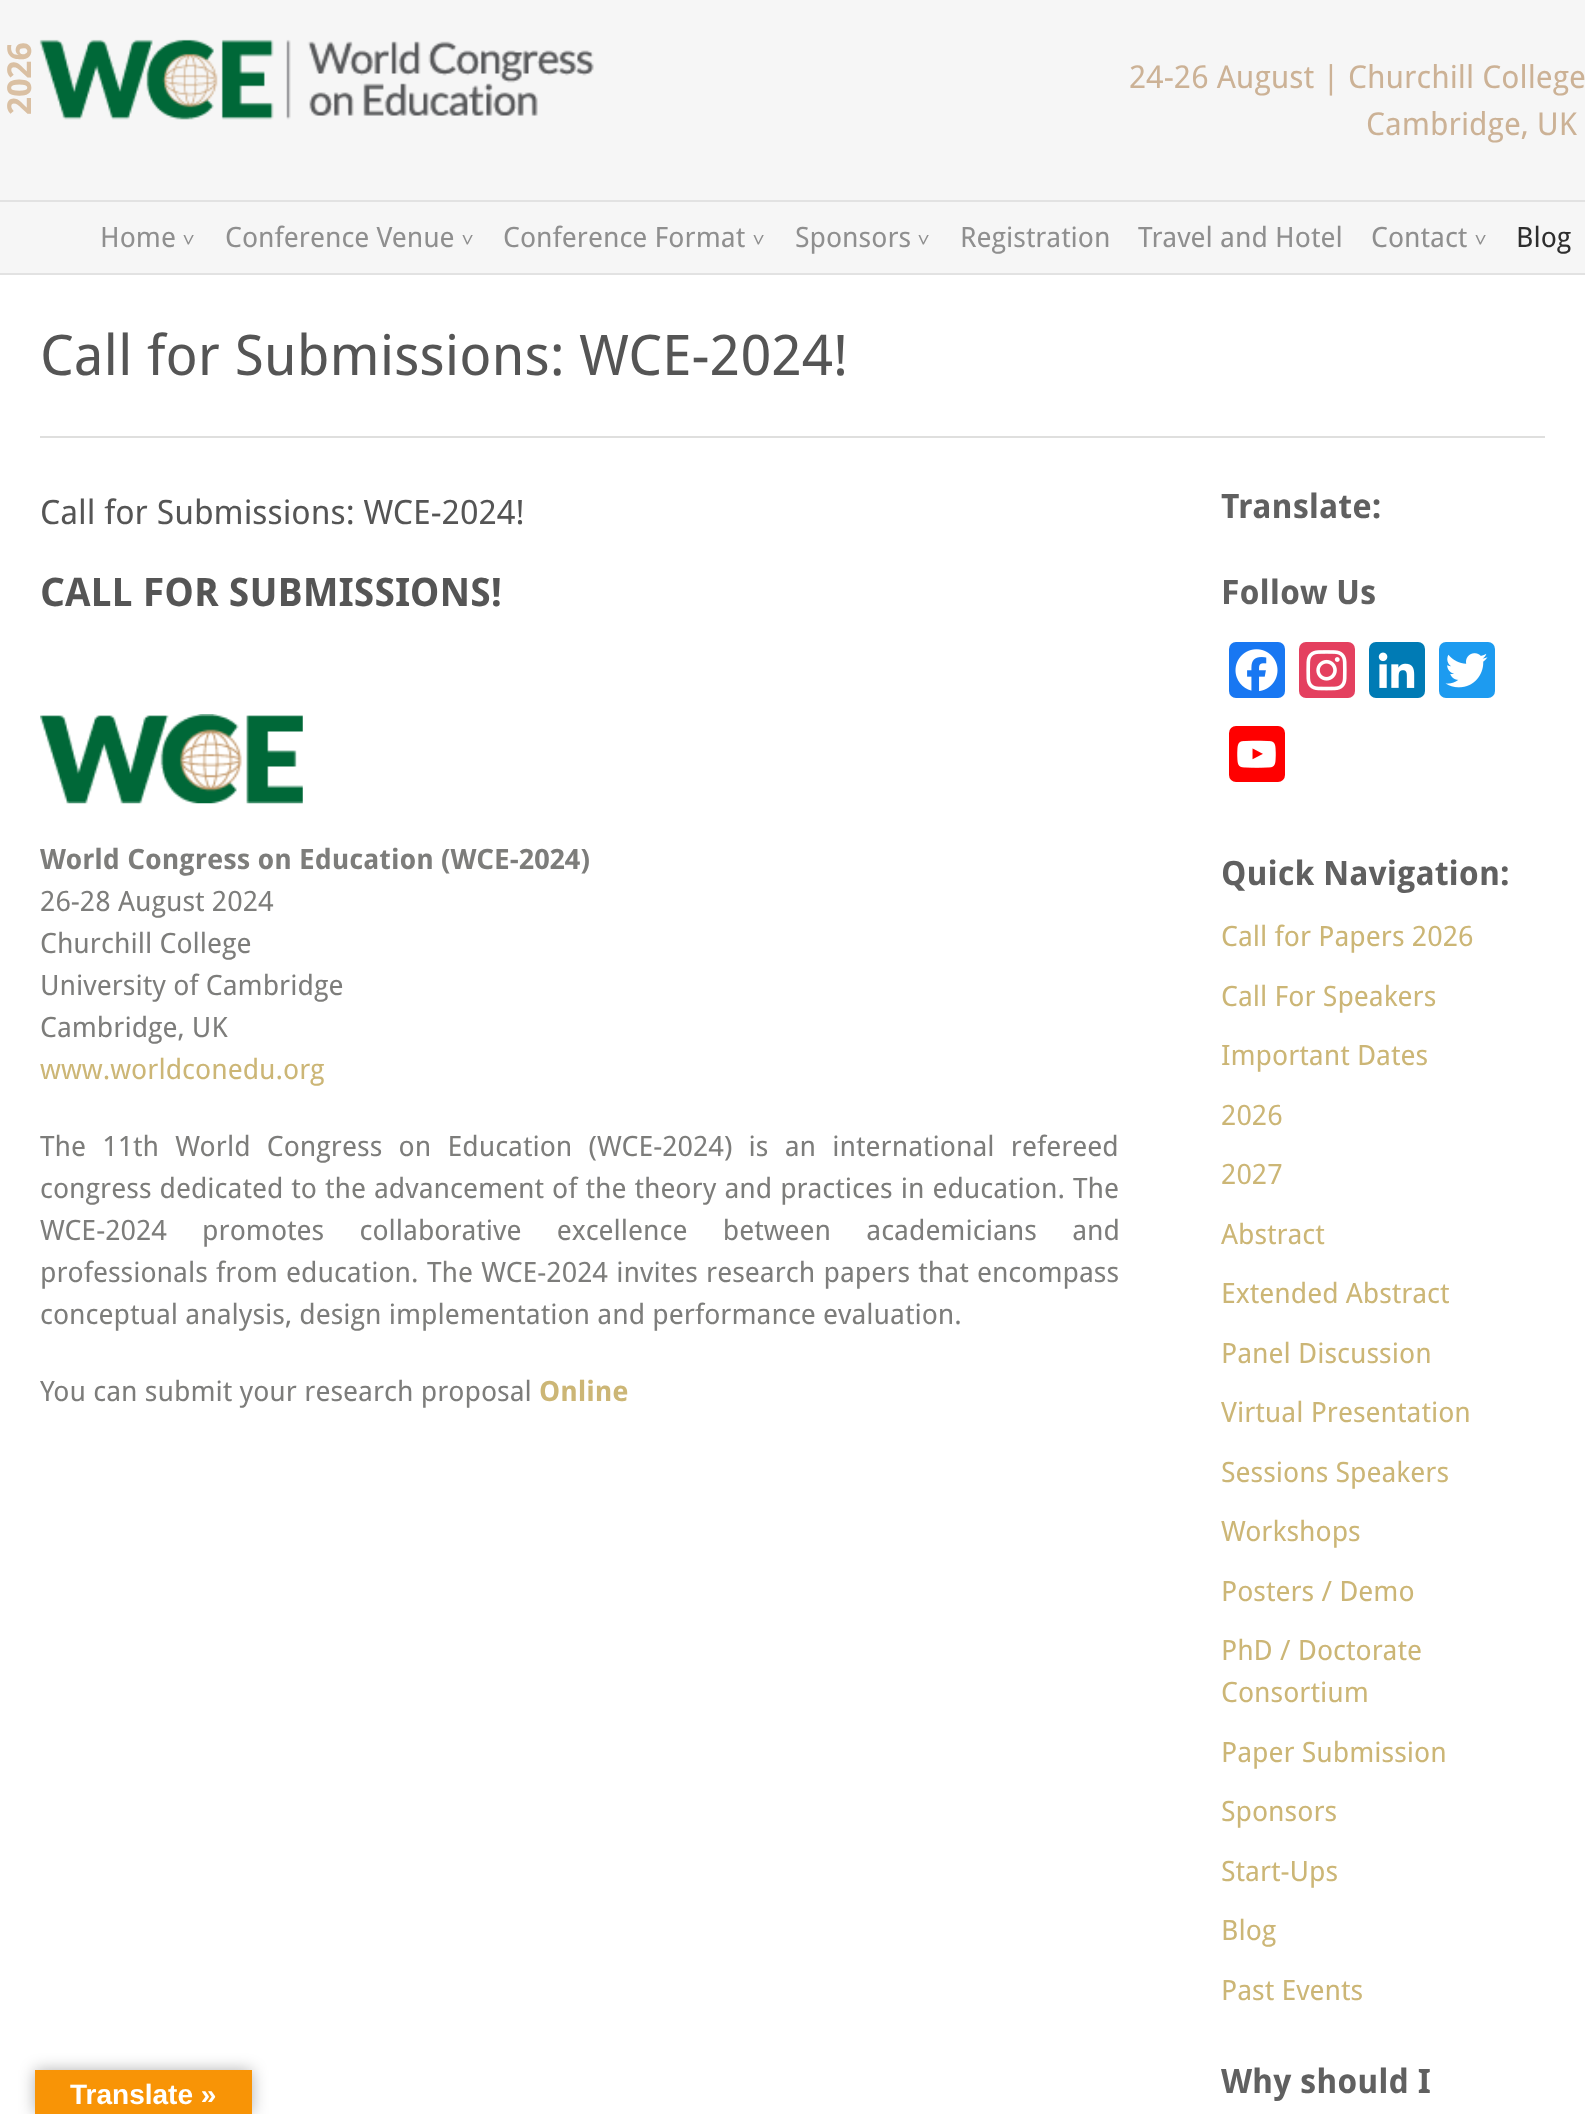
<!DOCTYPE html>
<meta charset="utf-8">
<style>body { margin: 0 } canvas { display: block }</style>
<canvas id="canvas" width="1585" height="2114"></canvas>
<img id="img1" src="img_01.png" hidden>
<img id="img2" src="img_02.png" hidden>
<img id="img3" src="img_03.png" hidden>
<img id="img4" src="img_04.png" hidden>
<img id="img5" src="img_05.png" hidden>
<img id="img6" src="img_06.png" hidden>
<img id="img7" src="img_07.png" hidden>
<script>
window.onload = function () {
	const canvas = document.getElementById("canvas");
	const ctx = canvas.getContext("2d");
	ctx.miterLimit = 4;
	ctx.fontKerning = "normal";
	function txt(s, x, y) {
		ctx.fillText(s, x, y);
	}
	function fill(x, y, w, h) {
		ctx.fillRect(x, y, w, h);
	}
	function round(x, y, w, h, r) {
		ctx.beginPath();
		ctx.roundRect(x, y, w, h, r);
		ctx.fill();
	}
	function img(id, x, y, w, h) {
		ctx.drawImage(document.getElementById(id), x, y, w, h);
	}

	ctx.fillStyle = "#FFFFFF";
	fill(0, 0, 1585, 2114);
	ctx.fillStyle = "#F6F6F6";
	fill(0, 0, 1585, 273);
	ctx.fillStyle = "#E2E2E2";
	fill(0, 200, 1585, 2);
	img("img1", 39, 39, 555, 81);
	fill(0, 273, 1585, 2);
	ctx.fillStyle = "#DFDFDE";
	fill(40, 436, 1505, 2);
	img("img2", 40, 714, 263, 90);
	ctx.fillStyle = "#1877F2";
	round(1229, 642, 56, 56, 7);
	img("img3", 1235, 649, 43, 43);
	ctx.fillStyle = "#E4405F";
	round(1299, 642, 56, 56, 7);
	img("img4", 1306, 650, 41, 41);
	ctx.fillStyle = "#007BB5";
	round(1369, 642, 56, 56, 7);
	img("img5", 1378, 652, 37, 36);
	ctx.fillStyle = "#1D9BF0";
	round(1439, 642, 56, 56, 7);
	img("img6", 1445, 653, 43, 35);
	ctx.fillStyle = "#FF0000";
	round(1229, 726, 56, 56, 7);
	img("img7", 1237, 740, 39, 28);
	ctx.fillStyle = "rgba(0, 0, 0, 0.3)";
	ctx.filter = "blur(8px)";
	ctx.beginPath();
	ctx.rect(35, 2070, 217, 44);
	ctx.fill();
	ctx.filter = "none";
	ctx.fillStyle = "#F89406";
	fill(35, 2070, 217, 44);
	ctx.font = "bold 33px Droid Sans";
	ctx.fillStyle = "#DAC0A3";
	ctx.save();
	ctx.translate(31, 115);
	ctx.rotate(-90 * Math.PI / 180);
	ctx.fillText("2026", 0, 0);
	ctx.restore();
	ctx.font = "31.5px Droid Sans";
	ctx.fillStyle = "#CCB296";
	txt("24-26 August | Churchill College", 1129, 88);
	txt("Cambridge, UK", 1366, 135);
	ctx.font = "28px Droid Sans";
	ctx.fillStyle = "#8F8F8F";
	txt("Home", 100, 247);
	ctx.font = "21px Droid Sans";
	ctx.save();
	ctx.translate(181, 234);
	ctx.rotate(90 * Math.PI / 180);
	ctx.fillText(">", 0, 0);
	ctx.restore();
	ctx.font = "28px Droid Sans";
	txt("Conference Venue", 225, 247);
	ctx.font = "21px Droid Sans";
	ctx.save();
	ctx.translate(460, 234);
	ctx.rotate(90 * Math.PI / 180);
	ctx.fillText(">", 0, 0);
	ctx.restore();
	ctx.font = "28px Droid Sans";
	txt("Conference Format", 503, 247);
	ctx.font = "21px Droid Sans";
	ctx.save();
	ctx.translate(751, 234);
	ctx.rotate(90 * Math.PI / 180);
	ctx.fillText(">", 0, 0);
	ctx.restore();
	ctx.font = "28px Droid Sans";
	txt("Sponsors", 795, 247);
	ctx.font = "21px Droid Sans";
	ctx.save();
	ctx.translate(916, 234);
	ctx.rotate(90 * Math.PI / 180);
	ctx.fillText(">", 0, 0);
	ctx.restore();
	ctx.font = "28px Droid Sans";
	txt("Registration", 960, 247);
	txt("Travel and Hotel", 1138, 247);
	txt("Contact", 1371, 247);
	ctx.font = "21px Droid Sans";
	ctx.save();
	ctx.translate(1473, 234);
	ctx.rotate(90 * Math.PI / 180);
	ctx.fillText(">", 0, 0);
	ctx.restore();
	ctx.font = "28px Droid Sans";
	ctx.fillStyle = "#2E2E2E";
	txt("Blog", 1516, 247);
	ctx.font = "56px Droid Sans";
	ctx.fillStyle = "#555555";
	txt("Call for Submissions: WCE-2024!", 40, 375);
	ctx.font = "33.6px Droid Sans";
	txt("Call for Submissions: WCE-2024!", 40, 524);
	ctx.font = "bold 39.25px Droid Sans";
	txt("CALL FOR SUBMISSIONS!", 40, 606);
	ctx.font = "bold 28px Droid Sans";
	ctx.fillStyle = "#7D7D7B";
	txt("World Congress on Education (WCE-2024)", 40, 869);
	ctx.font = "28px Droid Sans";
	txt("26-28 August 2024", 40, 911);
	txt("Churchill College", 40, 953);
	txt("University of Cambridge", 40, 995);
	txt("Cambridge, UK", 40, 1037);
	ctx.fillStyle = "#CCB676";
	txt("www.worldconedu.org", 40, 1079);
	ctx.wordSpacing = "9px";
	ctx.fillStyle = "#7D7D7B";
	txt("The 11th World Congress on Education (WCE-2024) is an international refereed", 40, 1156);
	ctx.wordSpacing = "0.75px";
	txt("congress dedicated to the advancement of the theory and practices in education. The", 40, 1198);
	ctx.wordSpacing = "28px";
	txt("WCE-2024 promotes collaborative excellence between academicians and", 40, 1240);
	ctx.wordSpacing = "1px";
	txt("professionals from education. The WCE-2024 invites research papers that encompass", 40, 1282);
	ctx.wordSpacing = "0px";
	txt("conceptual analysis, design implementation and performance evaluation.", 40, 1324);
	txt("You can submit your research proposal", 40, 1401);
	ctx.font = "bold 28px Droid Sans";
	ctx.fillStyle = "#CCB676";
	txt("Online", 539, 1401);
	ctx.font = "bold 33.6px Droid Sans";
	ctx.fillStyle = "#606060";
	txt("Translate:", 1221, 518);
	txt("Follow Us", 1221, 604);
	txt("Quick Navigation:", 1221, 885);
	ctx.font = "28px Droid Sans";
	ctx.fillStyle = "#CCB676";
	txt("Call for Papers 2026", 1221, 946);
	txt("Call For Speakers", 1221, 1006);
	txt("Important Dates", 1221, 1065);
	txt("2026", 1221, 1125);
	txt("2027", 1221, 1184);
	txt("Abstract", 1221, 1244);
	txt("Extended Abstract", 1221, 1303);
	txt("Panel Discussion", 1221, 1363);
	txt("Virtual Presentation", 1221, 1422);
	txt("Sessions Speakers", 1221, 1482);
	txt("Workshops", 1221, 1541);
	txt("Posters / Demo", 1221, 1601);
	txt("PhD / Doctorate", 1221, 1660);
	txt("Consortium", 1221, 1702);
	txt("Paper Submission", 1221, 1762);
	txt("Sponsors", 1221, 1821);
	txt("Start-Ups", 1221, 1881);
	txt("Blog", 1221, 1940);
	txt("Past Events", 1221, 2000);
	ctx.font = "bold 33.6px Droid Sans";
	ctx.fillStyle = "#606060";
	txt("Why should I", 1221, 2093);
	ctx.font = "bold 28px Liberation Sans";
	ctx.fillStyle = "#FFFFFF";
	txt("Translate »", 70, 2104);
};
</script>
